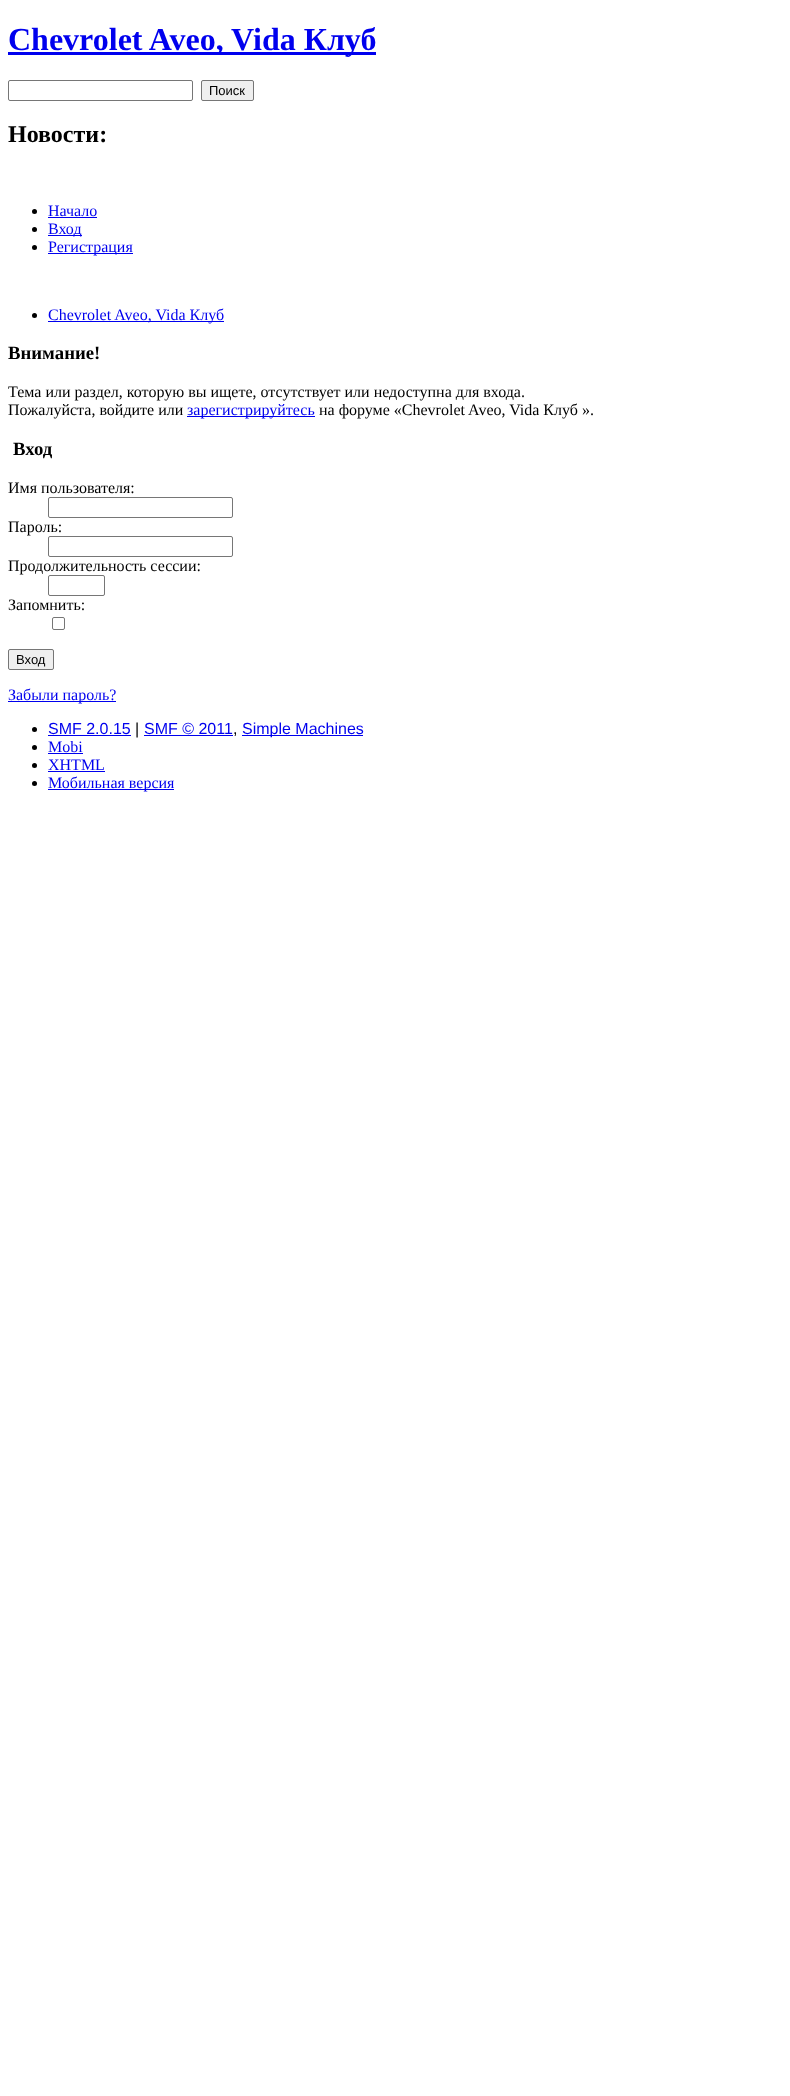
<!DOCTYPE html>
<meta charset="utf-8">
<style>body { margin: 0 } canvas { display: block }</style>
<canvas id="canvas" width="790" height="2096"></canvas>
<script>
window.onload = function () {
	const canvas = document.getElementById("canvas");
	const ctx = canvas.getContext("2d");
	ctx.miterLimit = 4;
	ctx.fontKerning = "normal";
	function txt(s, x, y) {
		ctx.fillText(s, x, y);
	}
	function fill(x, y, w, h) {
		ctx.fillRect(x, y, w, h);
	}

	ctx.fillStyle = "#FFFFFF";
	fill(0, 0, 790, 2096);
	ctx.fillStyle = "#0000EE";
	fill(8, 52, 368, 3);
	ctx.beginPath();
	ctx.roundRect(8.5, 80.5, 184, 20, 1.5);
	ctx.strokeStyle = "#767676";
	ctx.stroke();
	ctx.fillStyle = "#EFEFEF";
	ctx.beginPath();
	ctx.roundRect(201.5, 80.5, 52, 20, 1.5);
	ctx.fill();
	ctx.stroke();
	ctx.fillStyle = "#000000";
	ctx.beginPath();
	ctx.arc(34.5, 211.5, 2.5, 0, Math.PI * 2);
	ctx.fill();
	ctx.fillStyle = "#0000EE";
	fill(48, 217, 49, 1);
	ctx.fillStyle = "#000000";
	ctx.beginPath();
	ctx.arc(34.5, 229.5, 2.5, 0, Math.PI * 2);
	ctx.fill();
	ctx.fillStyle = "#0000EE";
	fill(48, 235, 34, 1);
	ctx.fillStyle = "#000000";
	ctx.beginPath();
	ctx.arc(34.5, 247.5, 2.5, 0, Math.PI * 2);
	ctx.fill();
	ctx.fillStyle = "#0000EE";
	fill(48, 253, 85, 1);
	ctx.fillStyle = "#000000";
	ctx.beginPath();
	ctx.arc(34.5, 315.5, 2.5, 0, Math.PI * 2);
	ctx.fill();
	ctx.fillStyle = "#0000EE";
	fill(48, 321, 176, 1);
	fill(187, 416, 128, 1);
	ctx.beginPath();
	ctx.roundRect(48.5, 497.5, 184, 20, 1.5);
	ctx.stroke();
	ctx.beginPath();
	ctx.roundRect(48.5, 536.5, 184, 20, 1.5);
	ctx.stroke();
	ctx.beginPath();
	ctx.roundRect(48.5, 575.5, 56, 20, 1.5);
	ctx.stroke();
	ctx.beginPath();
	ctx.roundRect(52.5, 617.5, 12, 12, 1.5);
	ctx.stroke();
	ctx.fillStyle = "#EFEFEF";
	ctx.beginPath();
	ctx.roundRect(8.5, 649.5, 45, 20, 1.5);
	ctx.fill();
	ctx.stroke();
	ctx.fillStyle = "#0000EE";
	fill(8, 701, 108, 1);
	ctx.fillStyle = "#000000";
	ctx.beginPath();
	ctx.arc(34.5, 729.5, 2.5, 0, Math.PI * 2);
	ctx.fill();
	ctx.fillStyle = "#0000EE";
	fill(48, 735, 83, 1);
	fill(144, 735, 89, 1);
	fill(242, 735, 121, 1);
	ctx.fillStyle = "#000000";
	ctx.beginPath();
	ctx.arc(34.5, 747.5, 2.5, 0, Math.PI * 2);
	ctx.fill();
	ctx.fillStyle = "#0000EE";
	fill(48, 753, 35, 1);
	ctx.fillStyle = "#000000";
	ctx.beginPath();
	ctx.arc(34.5, 765.5, 2.5, 0, Math.PI * 2);
	ctx.fill();
	ctx.fillStyle = "#0000EE";
	fill(48, 771, 57, 1);
	ctx.fillStyle = "#000000";
	ctx.beginPath();
	ctx.arc(34.5, 783.5, 2.5, 0, Math.PI * 2);
	ctx.fill();
	ctx.fillStyle = "#0000EE";
	fill(48, 789, 126, 1);
	ctx.font = "bold 32px Liberation Serif";
	txt("Chevrolet Aveo, Vida Клуб", 8, 50);
	ctx.font = "13px Liberation Sans";
	ctx.fillStyle = "#000000";
	txt("Поиск", 209, 95);
	ctx.font = "bold 24px Liberation Serif";
	txt("Новости:", 8, 142);
	ctx.font = "16px Liberation Serif";
	ctx.fillStyle = "#0000EE";
	txt("Начало", 48, 216);
	txt("Вход", 48, 234);
	txt("Регистрация", 48, 252);
	txt("Chevrolet Aveo, Vida Клуб", 48, 320);
	ctx.font = "bold 18.75px Liberation Serif";
	ctx.fillStyle = "#000000";
	txt("Внимание!", 8, 359);
	ctx.font = "16px Liberation Serif";
	txt("Тема или раздел, которую вы ищете, отсутствует или недоступна для входа.", 8, 397);
	txt("Пожалуйста, войдите или", 8, 415);
	ctx.fillStyle = "#0000EE";
	txt("зарегистрируйтесь", 187, 415);
	ctx.fillStyle = "#000000";
	txt("на форуме «Chevrolet Aveo, Vida Клуб ».", 319, 415);
	ctx.font = "bold 18.75px Liberation Serif";
	txt("Вход", 13, 455);
	ctx.font = "16px Liberation Serif";
	txt("Имя пользователя:", 8, 493);
	txt("Пароль:", 8, 532);
	txt("Продолжительность сессии:", 8, 571);
	txt("Запомнить:", 8, 610);
	ctx.font = "13px Liberation Sans";
	txt("Вход", 16, 664);
	ctx.font = "16px Liberation Serif";
	ctx.fillStyle = "#0000EE";
	txt("Забыли пароль?", 8, 700);
	ctx.font = "16px Liberation Sans";
	txt("SMF 2.0.15", 48, 734);
	ctx.fillStyle = "#000000";
	txt("|", 135, 734);
	ctx.fillStyle = "#0000EE";
	txt("SMF © 2011", 144, 734);
	txt("Simple Machines", 242, 734);
	ctx.fillStyle = "#000000";
	txt(",", 233, 734);
	ctx.font = "16px Liberation Serif";
	ctx.fillStyle = "#0000EE";
	txt("Mobi", 48, 752);
	txt("XHTML", 48, 770);
	txt("Мобильная версия", 48, 788);
};
</script>
